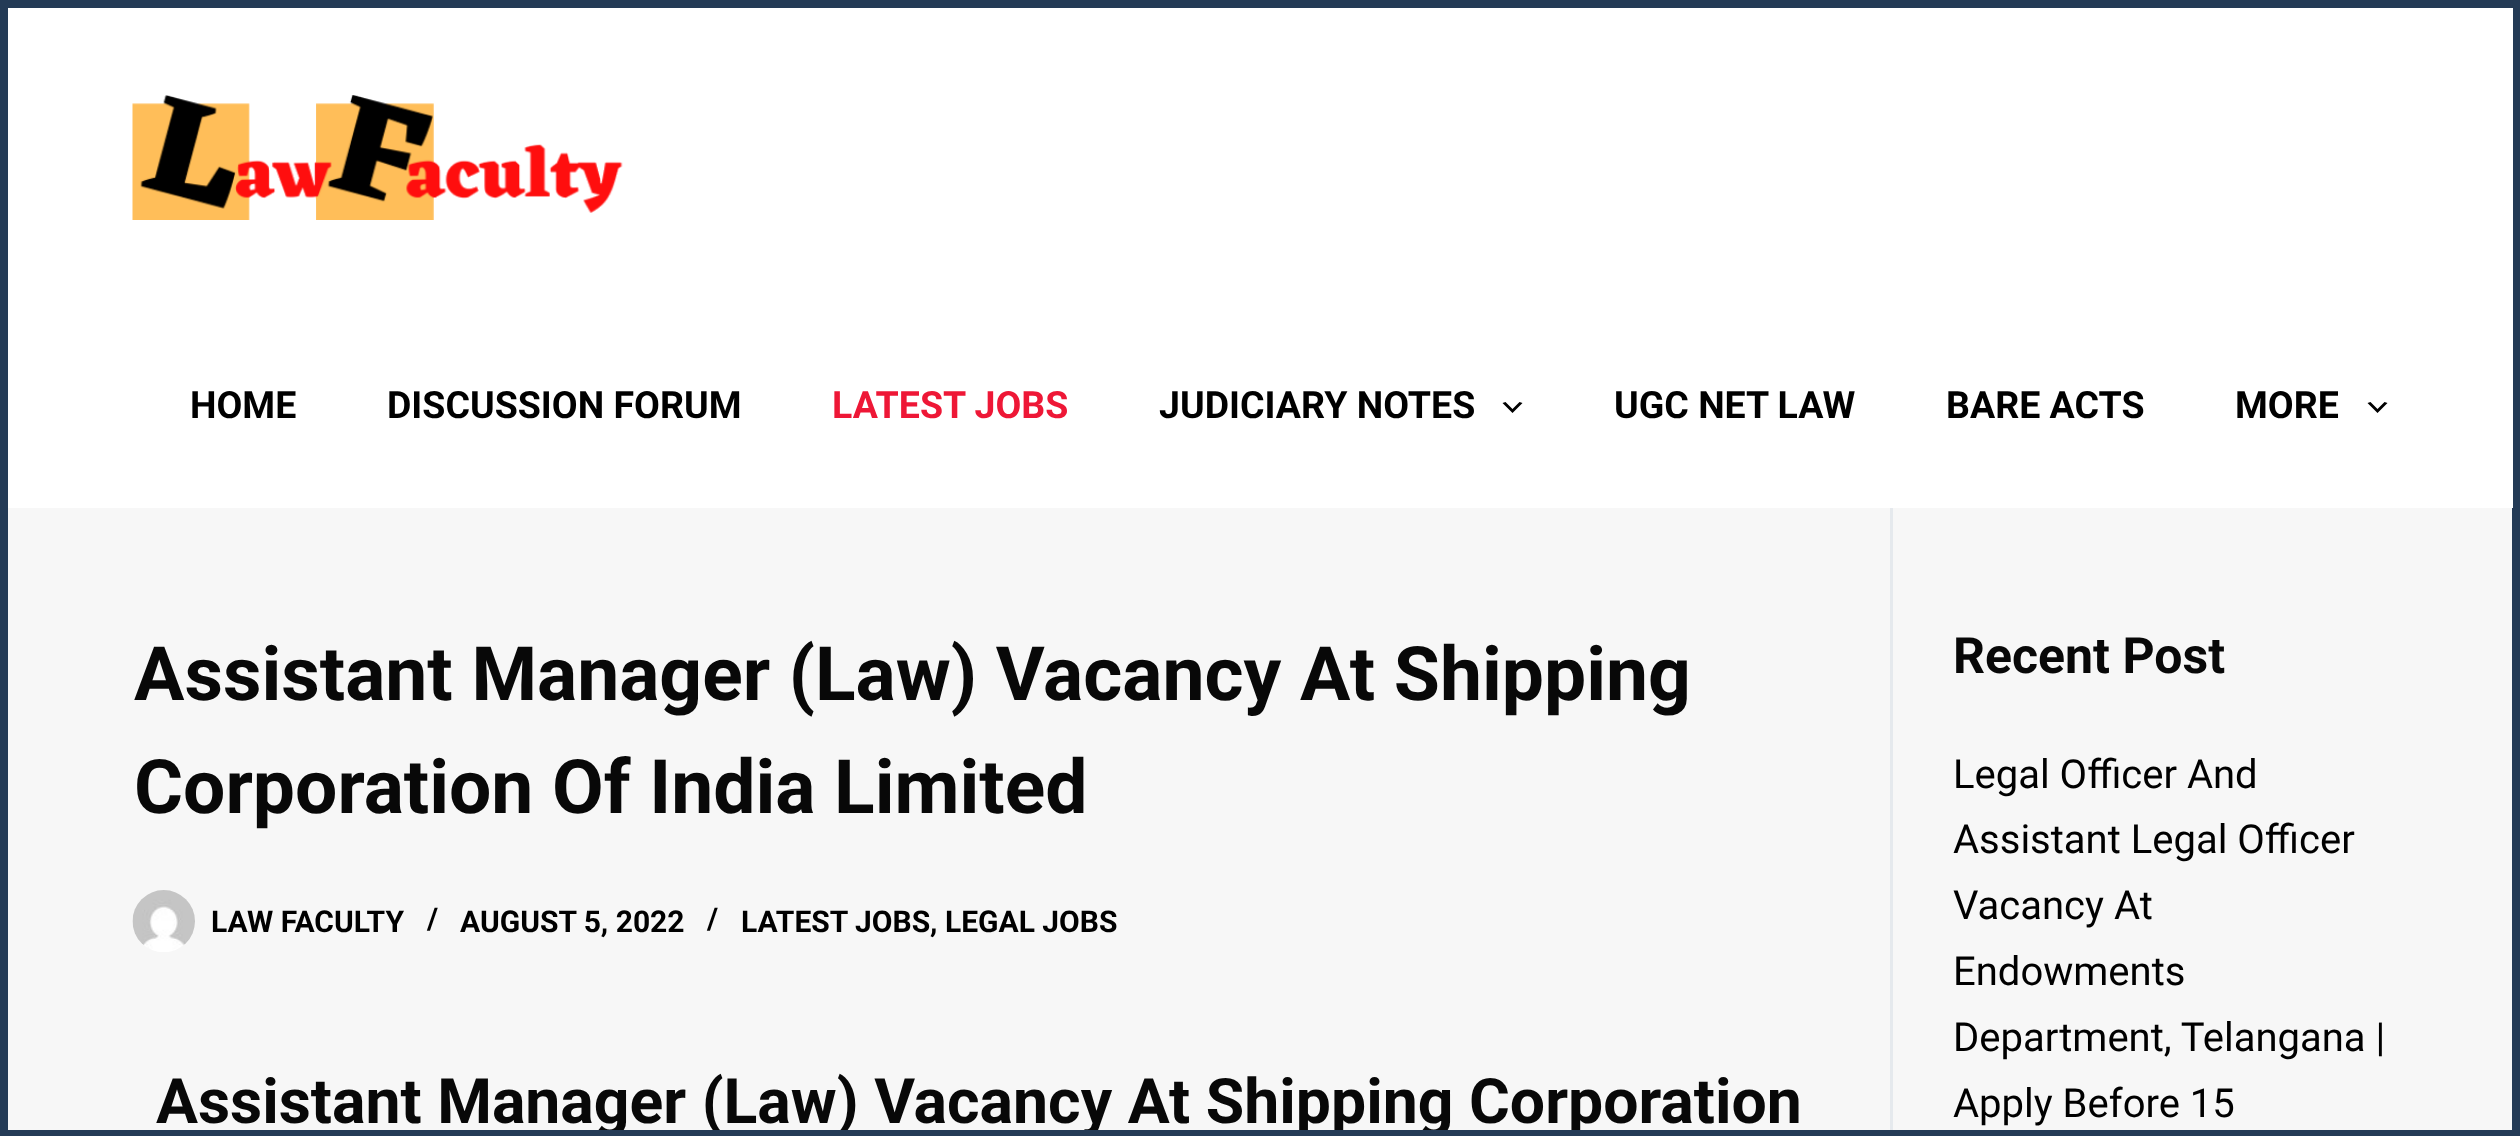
<!DOCTYPE html>
<meta charset="utf-8">
<style>body { margin: 0 } canvas { display: block }</style>
<canvas id="canvas" width="2520" height="1136"></canvas>
<img id="img1" src="img_01.png" hidden>
<img id="img2" src="img_02.png" hidden>
<script>
window.onload = function () {
	const canvas = document.getElementById("canvas");
	const ctx = canvas.getContext("2d");
	ctx.miterLimit = 4;
	ctx.fontKerning = "normal";
	function txt(s, x, y) {
		ctx.fillText(s, x, y);
	}
	function fill(x, y, w, h) {
		ctx.fillRect(x, y, w, h);
	}
	function img(id, x, y, w, h) {
		ctx.drawImage(document.getElementById(id), x, y, w, h);
	}

	ctx.fillStyle = "#F7F7F7";
	fill(0, 0, 2520, 1136);
	ctx.strokeStyle = "#243B56";
	ctx.lineWidth = 8;
	ctx.strokeRect(4, 4, 2512, 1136);
	ctx.fillStyle = "#FFFFFF";
	fill(8, 8, 2505, 500);
	img("img1", 132, 95, 491, 125);
	ctx.fillStyle = "#000000";
	ctx.beginPath();
	ctx.moveTo(1505.5, 402);
	ctx.lineTo(1512.5, 409);
	ctx.lineTo(1519.5, 402);
	ctx.lineTo(1522.5, 403);
	ctx.lineTo(1512.5, 413);
	ctx.lineTo(1502.5, 403);
	ctx.closePath();
	ctx.fill();
	ctx.beginPath();
	ctx.moveTo(2370.5, 402);
	ctx.lineTo(2377.5, 409);
	ctx.lineTo(2384.5, 402);
	ctx.lineTo(2387.5, 403);
	ctx.lineTo(2377.5, 413);
	ctx.lineTo(2367.5, 403);
	ctx.closePath();
	ctx.fill();
	img("img2", 132, 890, 63, 62);
	ctx.fillStyle = "#E5E9ED";
	fill(1890, 508, 3, 628);
	ctx.font = "bold 37.5px Roboto";
	ctx.fillStyle = "#000000";
	txt("HOME", 190, 418);
	txt("DISCUSSION FORUM", 387, 418);
	ctx.fillStyle = "#EE1736";
	txt("LATEST JOBS", 832, 418);
	ctx.fillStyle = "#000000";
	txt("JUDICIARY NOTES", 1159, 418);
	txt("UGC NET LAW", 1614, 418);
	txt("BARE ACTS", 1946, 418);
	txt("MORE", 2235, 418);
	ctx.font = "bold 75px Roboto";
	ctx.fillStyle = "#080808";
	txt("Assistant Manager (Law) Vacancy At Shipping", 134, 700);
	txt("Corporation Of India Limited", 134, 813);
	ctx.font = "bold 30px Roboto";
	ctx.fillStyle = "#000000";
	txt("LAW FACULTY", 211, 932);
	txt("/", 427, 929);
	txt("AUGUST 5, 2022", 460, 932);
	txt("/", 707, 929);
	txt("LATEST JOBS, LEGAL JOBS", 741, 932);
	ctx.font = "bold 62.5px Roboto";
	ctx.fillStyle = "#080808";
	txt("Assistant Manager (Law) Vacancy At Shipping Corporation", 156, 1123);
	ctx.font = "bold 50px Roboto";
	txt("Recent Post", 1953, 673);
	ctx.font = "40px Roboto";
	ctx.fillStyle = "#000000";
	txt("Legal Officer And", 1953, 788);
	txt("Assistant Legal Officer", 1953, 853);
	txt("Vacancy At", 1953, 919);
	txt("Endowments", 1953, 985);
	txt("Department, Telangana |", 1953, 1051);
	txt("Apply Before 15", 1953, 1117);
	ctx.fillStyle = "#243B56";
	fill(0, 1130, 2520, 6);
};
</script>
